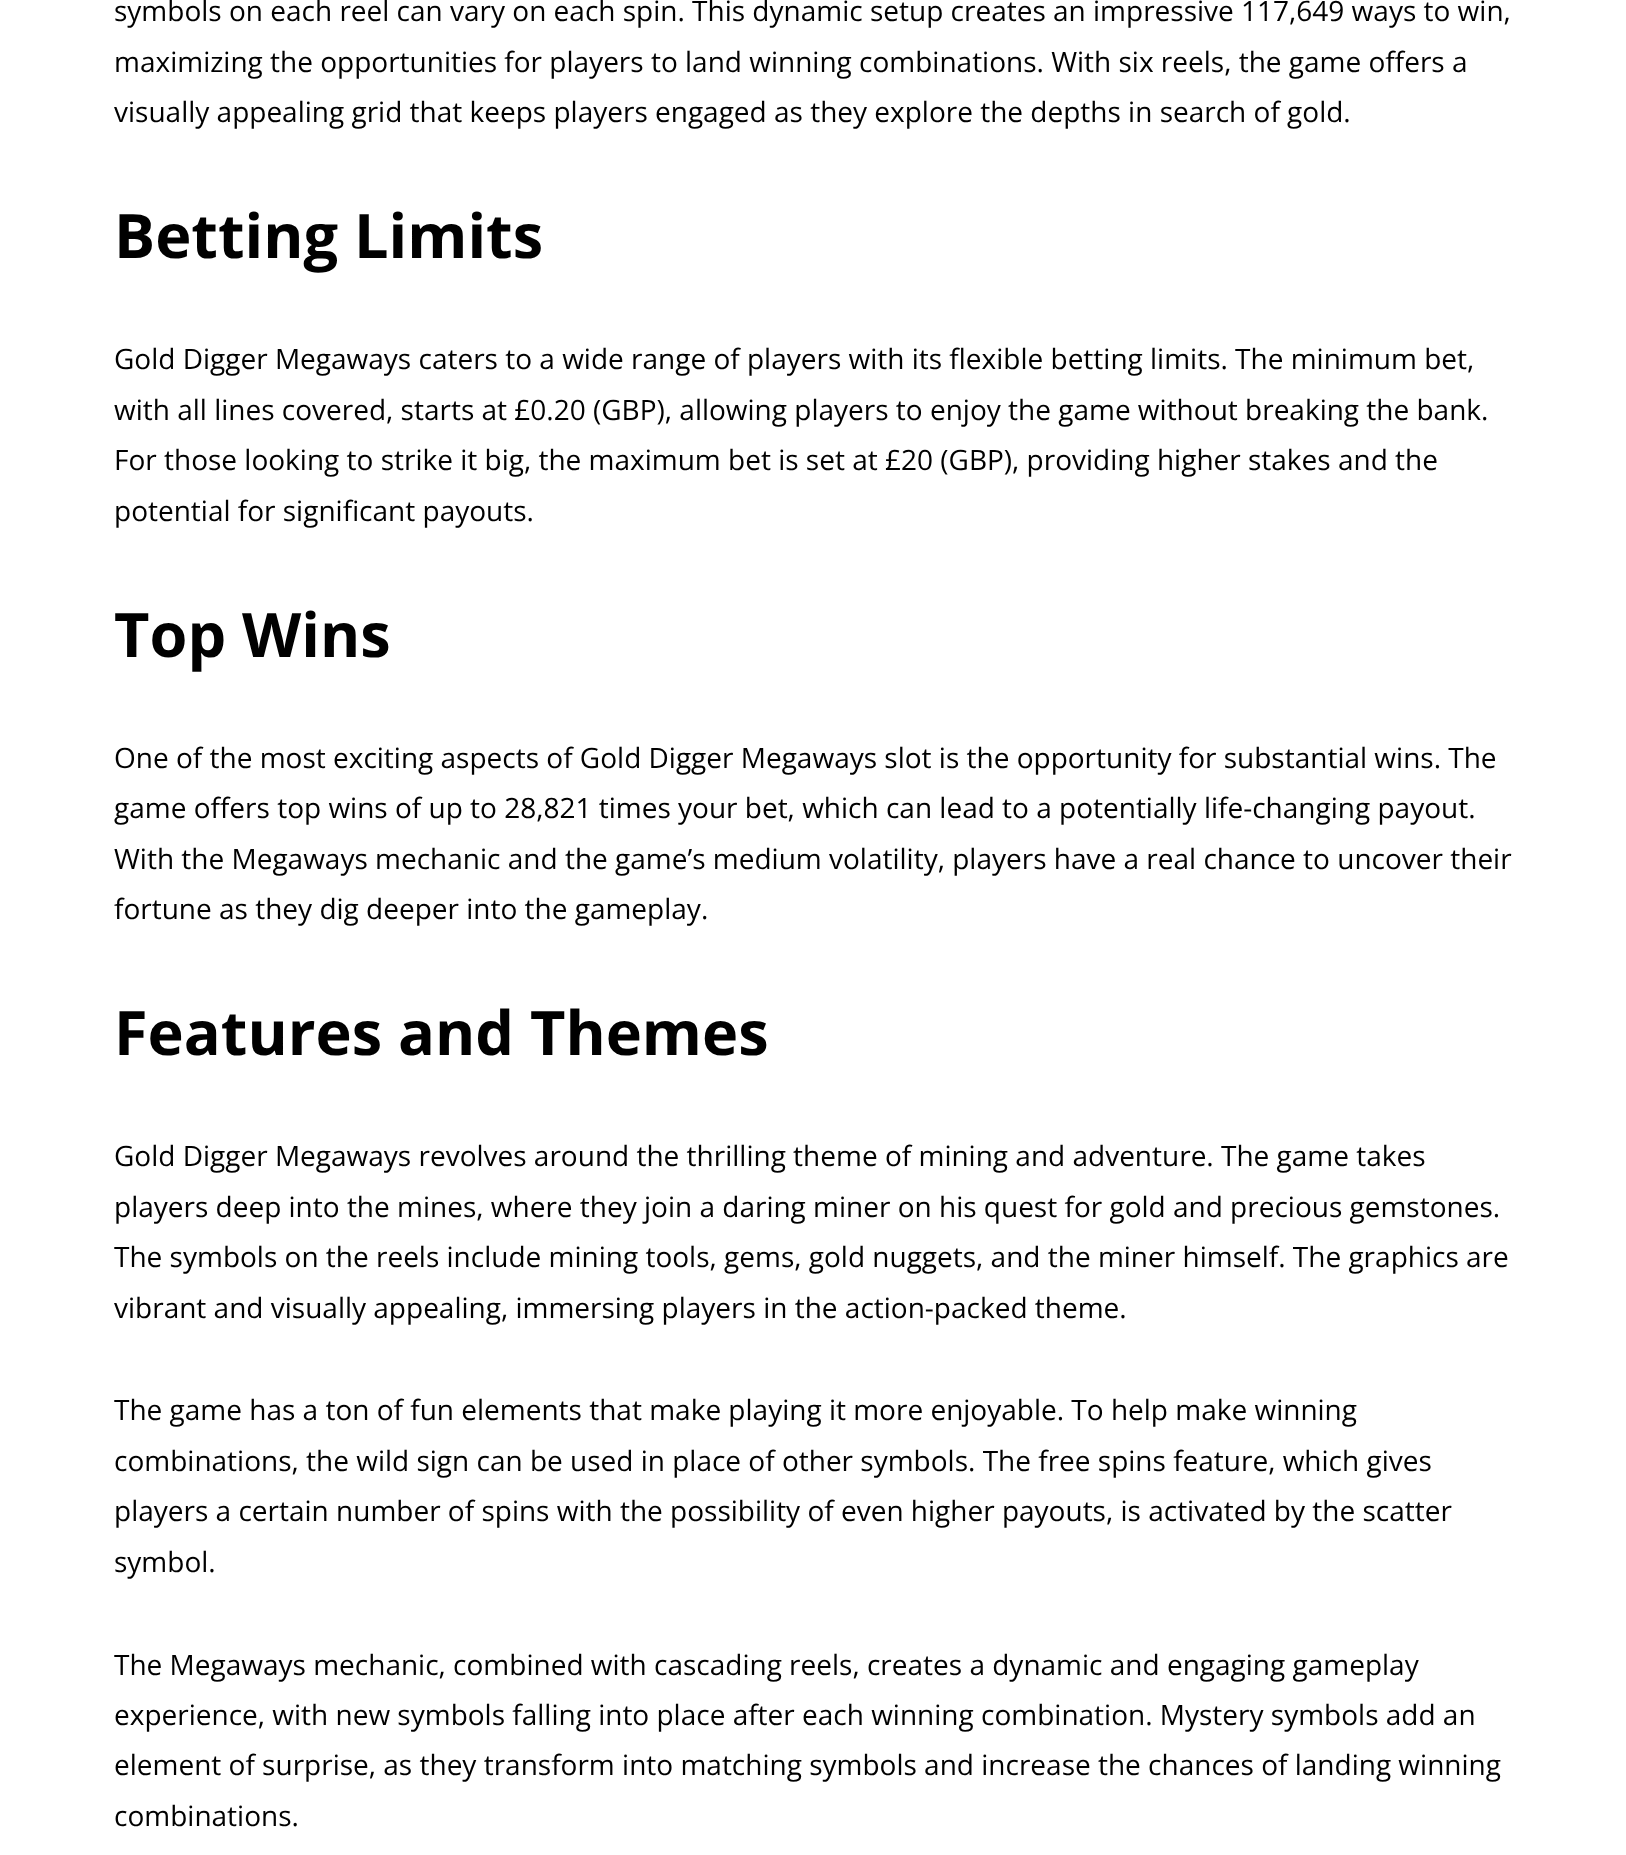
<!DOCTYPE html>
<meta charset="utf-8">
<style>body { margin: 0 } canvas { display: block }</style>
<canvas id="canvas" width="1626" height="1855"></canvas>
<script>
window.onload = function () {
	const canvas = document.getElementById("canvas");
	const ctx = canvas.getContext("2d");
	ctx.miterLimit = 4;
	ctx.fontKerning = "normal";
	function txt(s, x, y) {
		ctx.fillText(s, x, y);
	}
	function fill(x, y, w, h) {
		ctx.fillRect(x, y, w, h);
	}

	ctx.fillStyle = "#FFFFFF";
	fill(0, 0, 1626, 1855);
	ctx.font = "28px Open Sans";
	ctx.fillStyle = "#000000";
	txt("symbols on each reel can vary on each spin. This dynamic setup creates an impressive 117,649 ways to win,", 114, 21);
	txt("maximizing the opportunities for players to land winning combinations. With six reels, the game offers a", 114, 72);
	txt("visually appealing grid that keeps players engaged as they explore the depths in search of gold.", 114, 122);
	ctx.font = "bold 61.25px Open Sans";
	txt("Betting Limits", 114, 258);
	ctx.font = "28px Open Sans";
	txt("Gold Digger Megaways caters to a wide range of players with its flexible betting limits. The minimum bet,", 114, 369);
	txt("with all lines covered, starts at £0.20 (GBP), allowing players to enjoy the game without breaking the bank.", 114, 420);
	txt("For those looking to strike it big, the maximum bet is set at £20 (GBP), providing higher stakes and the", 114, 470);
	txt("potential for significant payouts.", 114, 521);
	ctx.font = "bold 61.25px Open Sans";
	txt("Top Wins", 114, 657);
	ctx.font = "28px Open Sans";
	txt("One of the most exciting aspects of Gold Digger Megaways slot is the opportunity for substantial wins. The", 114, 768);
	txt("game offers top wins of up to 28,821 times your bet, which can lead to a potentially life-changing payout.", 114, 818);
	txt("With the Megaways mechanic and the game’s medium volatility, players have a real chance to uncover their", 114, 869);
	txt("fortune as they dig deeper into the gameplay.", 114, 919);
	ctx.font = "bold 61.25px Open Sans";
	txt("Features and Themes", 114, 1055);
	ctx.font = "28px Open Sans";
	txt("Gold Digger Megaways revolves around the thrilling theme of mining and adventure. The game takes", 114, 1166);
	txt("players deep into the mines, where they join a daring miner on his quest for gold and precious gemstones.", 114, 1217);
	txt("The symbols on the reels include mining tools, gems, gold nuggets, and the miner himself. The graphics are", 114, 1267);
	txt("vibrant and visually appealing, immersing players in the action-packed theme.", 114, 1318);
	txt("The game has a ton of fun elements that make playing it more enjoyable. To help make winning", 114, 1420);
	txt("combinations, the wild sign can be used in place of other symbols. The free spins feature, which gives", 114, 1471);
	txt("players a certain number of spins with the possibility of even higher payouts, is activated by the scatter", 114, 1521);
	txt("symbol.", 114, 1572);
	txt("The Megaways mechanic, combined with cascading reels, creates a dynamic and engaging gameplay", 114, 1675);
	txt("experience, with new symbols falling into place after each winning combination. Mystery symbols add an", 114, 1725);
	txt("element of surprise, as they transform into matching symbols and increase the chances of landing winning", 114, 1775);
	txt("combinations.", 114, 1826);
};
</script>
